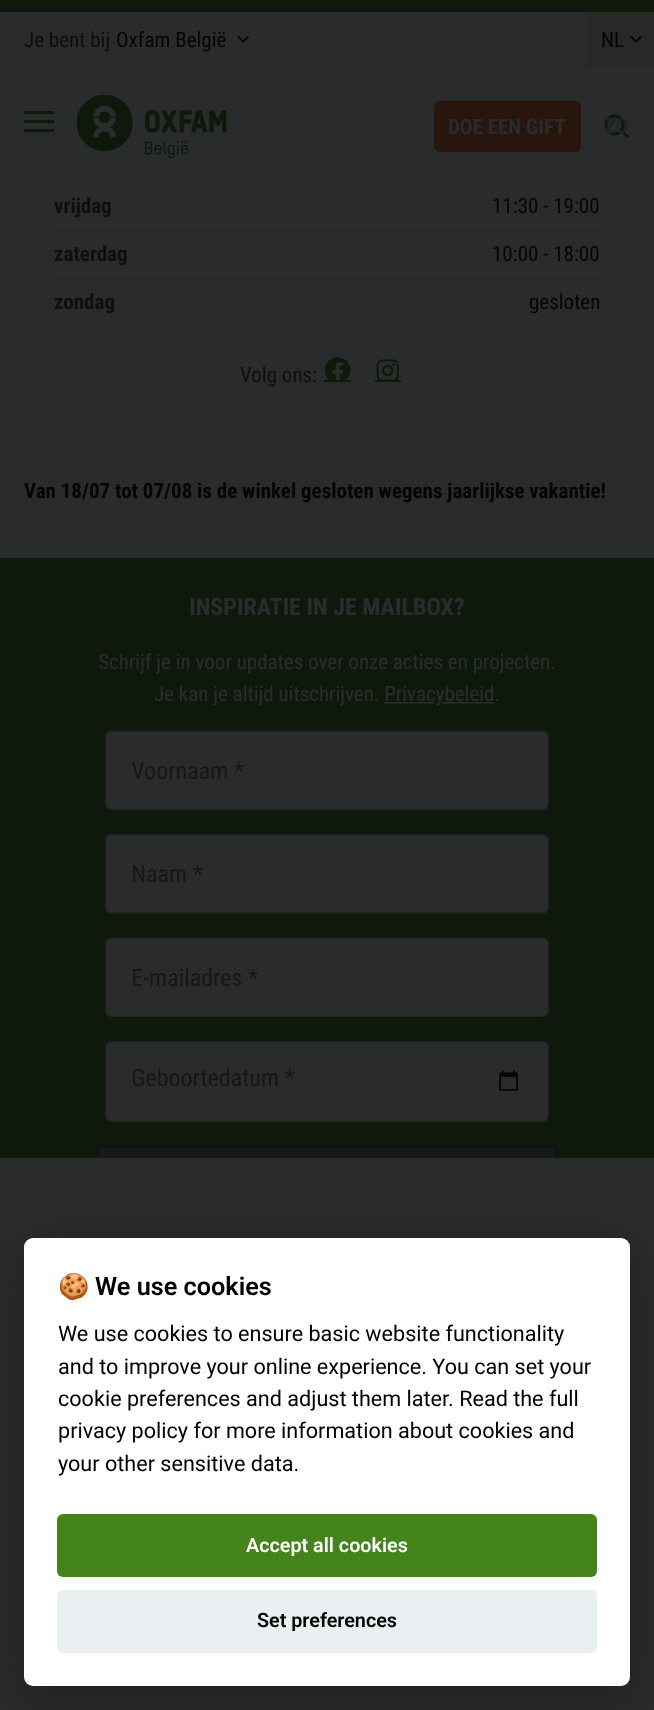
<!DOCTYPE html>
<meta charset="utf-8">
<style>body { margin: 0 } canvas { display: block }</style>
<canvas id="canvas" width="654" height="1710"></canvas>
<img id="img1" src="img_01.png" hidden>
<img id="img2" src="img_02.png" hidden>
<img id="img3" src="img_03.png" hidden>
<img id="img4" src="img_04.png" hidden>
<img id="img5" src="img_05.png" hidden>
<img id="img6" src="img_06.png" hidden>
<script>
window.onload = function () {
	const canvas = document.getElementById("canvas");
	const ctx = canvas.getContext("2d");
	ctx.miterLimit = 4;
	ctx.fontKerning = "normal";
	function txt(s, x, y) {
		ctx.fillText(s, x, y);
	}
	function fill(x, y, w, h) {
		ctx.fillRect(x, y, w, h);
	}
	function round(x, y, w, h, r) {
		ctx.beginPath();
		ctx.roundRect(x, y, w, h, r);
		ctx.fill();
	}
	function img(id, x, y, w, h) {
		ctx.drawImage(document.getElementById(id), x, y, w, h);
	}

	ctx.fillStyle = "#2A2B2D";
	fill(0, 0, 654, 1710);
	ctx.fillStyle = "#0E190B";
	fill(0, 0, 654, 12);
	ctx.fillStyle = "#272828";
	fill(0, 66, 654, 2);
	img("img1", 237, 36, 12, 7);
	fill(587, 12, 67, 54);
	img("img2", 630, 36, 12, 7);
	fill(0, 186, 654, 2);
	ctx.fillStyle = "#0E190B";
	fill(24, 111, 30, 3);
	fill(24, 120, 30, 3);
	fill(24, 129, 30, 3);
	img("img3", 77, 95, 150, 64);
	ctx.fillStyle = "#28160C";
	round(434, 101, 147, 51, 6);
	ctx.save();
	ctx.beginPath();
	ctx.moveTo(614.5, 114.5);
	ctx.bezierCurveTo(620.5, 114.5, 625, 119, 625, 125);
	ctx.bezierCurveTo(625, 130.5, 620.5, 135.5, 614.5, 135.5);
	ctx.bezierCurveTo(609, 135.5, 604.5, 130.5, 604.5, 125);
	ctx.bezierCurveTo(604.5, 119, 609, 114.5, 614.5, 114.5);
	ctx.closePath();
	ctx.clip();
	ctx.beginPath();
	ctx.moveTo(614.5, 114.5);
	ctx.bezierCurveTo(628, 114.5, 628, 135.5, 614.5, 135.5);
	ctx.bezierCurveTo(601, 135.5, 601, 114.5, 614.5, 114.5);
	ctx.closePath();
	ctx.strokeStyle = "#0E190B";
	ctx.lineWidth = 6;
	ctx.stroke();
	ctx.restore();
	ctx.beginPath();
	ctx.moveTo(621, 130);
	ctx.lineTo(627, 136);
	ctx.strokeStyle = "#0E190B";
	ctx.lineWidth = 3;
	ctx.lineCap = "round";
	ctx.stroke();
	ctx.fillStyle = "#272828";
	fill(54, 230, 546, 2);
	fill(54, 278, 546, 2);
	ctx.fillStyle = "#0E190B";
	fill(324, 380, 27, 2);
	img("img4", 324, 357, 27, 26);
	fill(375, 380, 26, 2);
	img("img5", 376, 359, 23, 21);
	fill(0, 558, 654, 600);
	img("img6", 97, 597, 460, 561);
	ctx.fillStyle = "rgba(2, 2, 3, 0.28)";
	ctx.filter = "blur(22.5px)";
	ctx.beginPath();
	ctx.roundRect(24, 1253, 606, 448, 9);
	ctx.fill();
	ctx.filter = "none";
	ctx.fillStyle = "#FFFFFF";
	round(24, 1238, 606, 448, 9);
	ctx.fillStyle = "#44841A";
	round(57, 1514, 540, 63, 6);
	ctx.fillStyle = "#EAEFF2";
	round(57, 1590, 540, 63, 6);
	ctx.font = "21px Roboto Condensed";
	ctx.fillStyle = "#0D0F10";
	txt("Je bent bij", 24, 47);
	ctx.fillStyle = "#030507";
	txt("Oxfam België", 116, 47);
	txt("NL", 601, 47);
	ctx.font = "bold 21px Roboto Condensed";
	ctx.fillStyle = "#2A2B2D";
	txt("DOE EEN GIFT", 448, 134);
	ctx.fillStyle = "#212623";
	txt("ZO", 605, 133);
	ctx.fillStyle = "#0D0F10";
	txt("vrijdag", 54, 213);
	ctx.font = "21px Roboto Condensed";
	ctx.fillStyle = "#030507";
	txt("11:30 - 19:00", 492, 213);
	ctx.font = "bold 21px Roboto Condensed";
	ctx.fillStyle = "#0D0F10";
	txt("zaterdag", 54, 261);
	ctx.font = "21px Roboto Condensed";
	ctx.fillStyle = "#030507";
	txt("10:00 - 18:00", 492, 261);
	ctx.font = "bold 21px Roboto Condensed";
	ctx.fillStyle = "#0D0F10";
	txt("zondag", 54, 309);
	ctx.font = "21px Roboto Condensed";
	ctx.fillStyle = "#030507";
	txt("gesloten", 529, 309);
	ctx.fillStyle = "#0D0F10";
	txt("Volg ons:", 240, 382);
	ctx.font = "bold 21px Roboto Condensed";
	ctx.fillStyle = "#030507";
	txt("Van 18/07 tot 07/08 is de winkel gesloten wegens jaarlijkse vakantie!", 24, 498);
	ctx.font = "bold 25.25px Noto Color Emoji";
	ctx.fillStyle = "#000000";
	txt("🍪", 58, 1295);
	ctx.font = "600 25.25px Roboto";
	txt("We use cookies", 95, 1295);
	ctx.font = "21.6px Roboto";
	txt("We use cookies to ensure basic website functionality", 58, 1341);
	txt("and to improve your online experience. You can set your", 58, 1374);
	txt("cookie preferences and adjust them later. Read the full", 58, 1406);
	txt("privacy policy for more information about cookies and", 58, 1438);
	txt("your other sensitive data.", 58, 1471);
	ctx.font = "600 19.75px Roboto";
	ctx.fillStyle = "#FFFFFF";
	txt("Accept all cookies", 246, 1552);
	ctx.fillStyle = "#000000";
	txt("Set preferences", 257, 1627);
};
</script>
